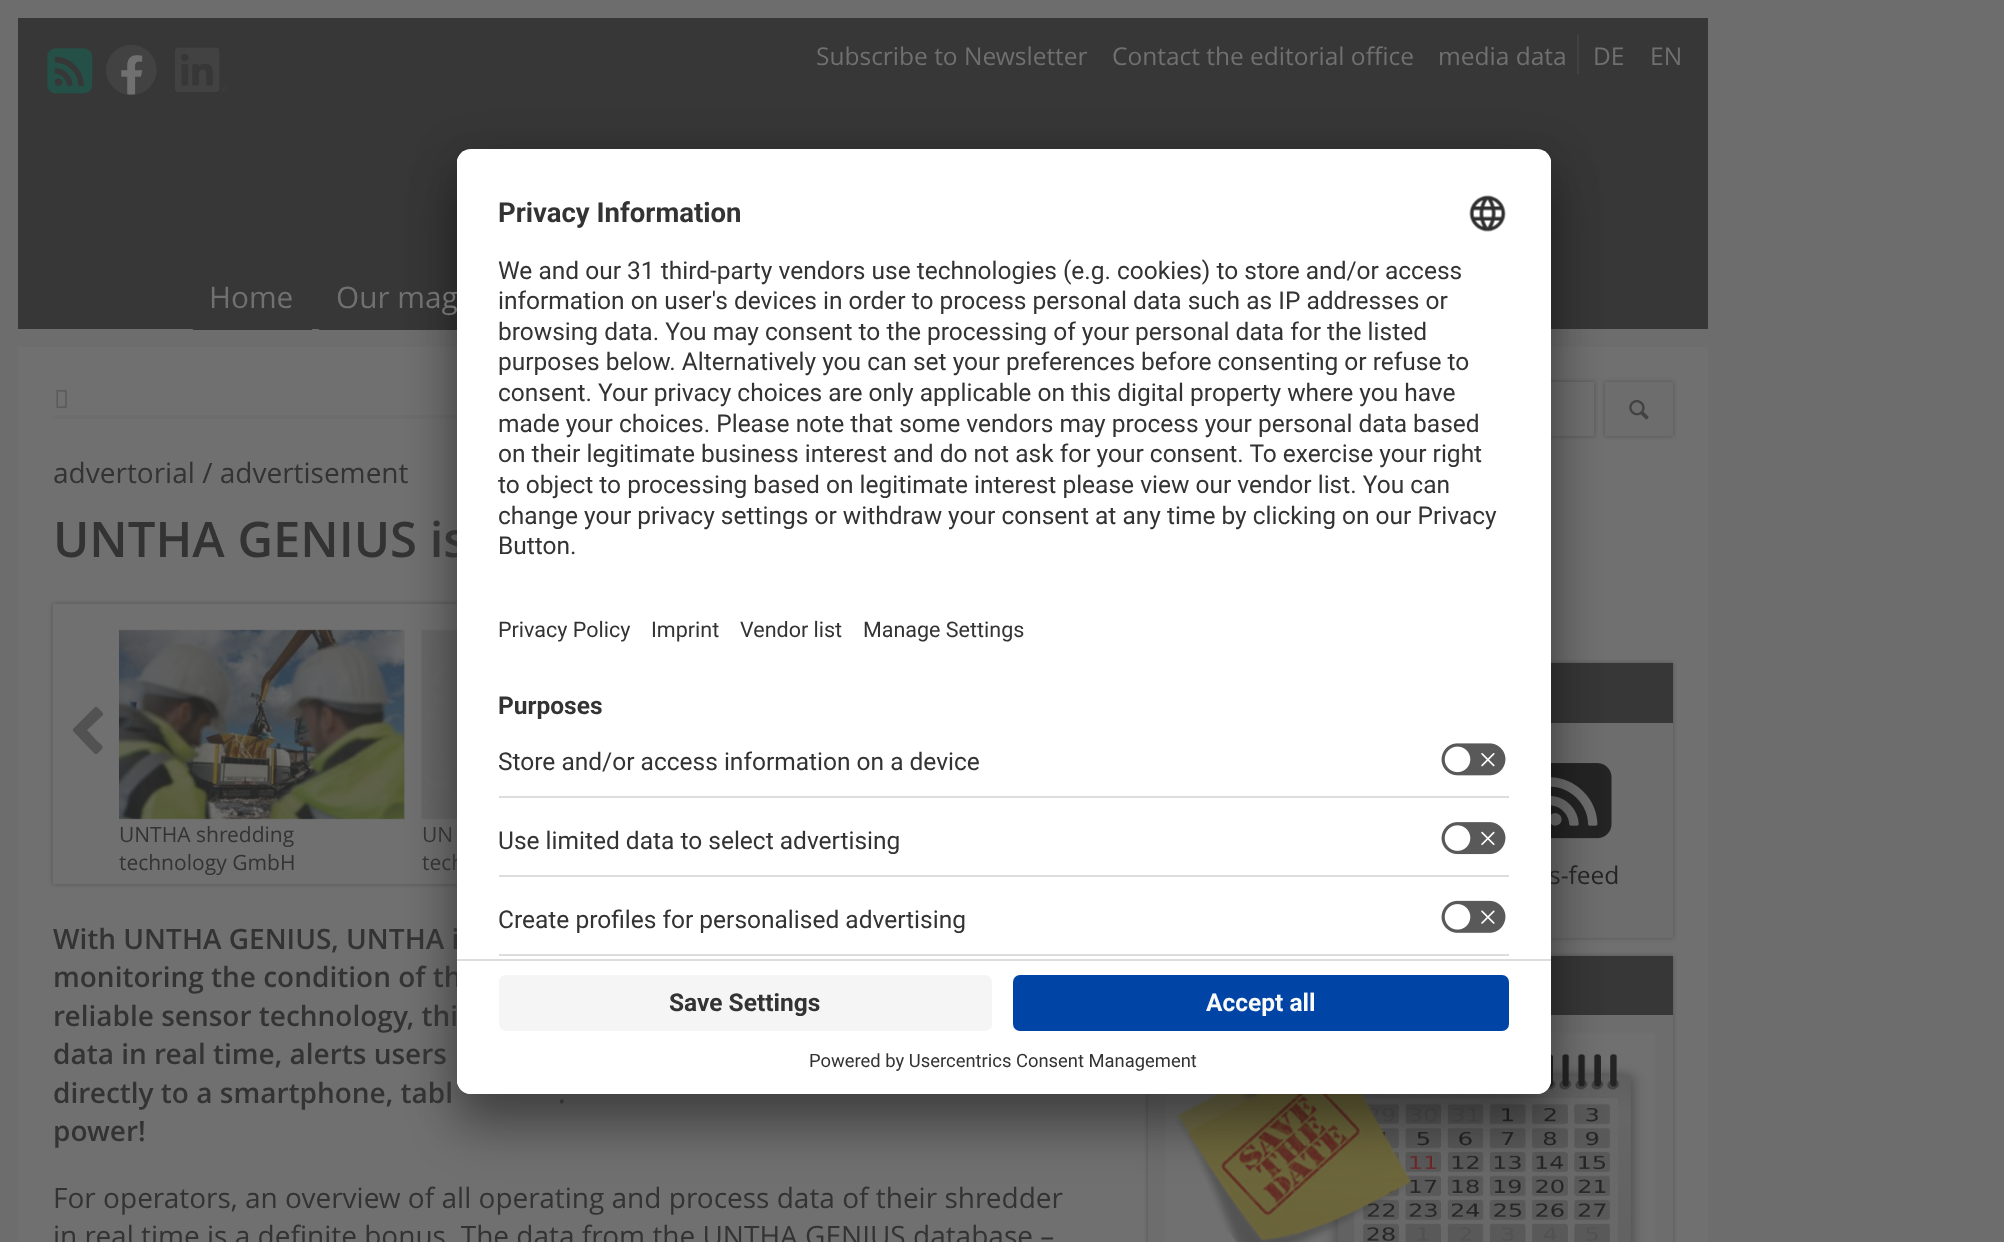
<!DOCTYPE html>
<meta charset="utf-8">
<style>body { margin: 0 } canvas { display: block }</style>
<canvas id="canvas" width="2004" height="1242"></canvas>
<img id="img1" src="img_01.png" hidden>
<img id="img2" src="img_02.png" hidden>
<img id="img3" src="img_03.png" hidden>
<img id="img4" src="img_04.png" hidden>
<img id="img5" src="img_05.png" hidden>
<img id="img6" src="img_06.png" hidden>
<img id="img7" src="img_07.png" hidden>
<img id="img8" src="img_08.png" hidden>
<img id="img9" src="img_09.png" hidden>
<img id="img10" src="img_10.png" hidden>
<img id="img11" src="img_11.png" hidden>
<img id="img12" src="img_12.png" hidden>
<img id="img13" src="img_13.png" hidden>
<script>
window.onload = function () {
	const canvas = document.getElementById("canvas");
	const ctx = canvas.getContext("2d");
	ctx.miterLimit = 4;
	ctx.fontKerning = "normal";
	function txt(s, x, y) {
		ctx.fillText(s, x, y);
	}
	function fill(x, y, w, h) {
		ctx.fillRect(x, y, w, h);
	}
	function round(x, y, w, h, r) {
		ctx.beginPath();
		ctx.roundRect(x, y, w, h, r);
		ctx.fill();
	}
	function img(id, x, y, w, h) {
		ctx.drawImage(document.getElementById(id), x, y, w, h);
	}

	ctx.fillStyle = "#6D6D6D";
	fill(0, 0, 2004, 1242);
	ctx.fillStyle = "#373737";
	fill(18, 18, 1690, 311);
	img("img1", 47, 48, 46, 46);
	img("img2", 105, 44, 52, 51);
	img("img3", 175, 47, 53, 46);
	ctx.fillStyle = "#424242";
	fill(1577, 35, 2, 39);
	ctx.fillStyle = "#373737";
	fill(193, 329, 119, 1);
	fill(319, 329, 138, 1);
	ctx.fillStyle = "#707070";
	fill(18, 347, 1690, 895);
	ctx.fillStyle = "#6D6D6D";
	fill(53, 415, 404, 4);
	img("img4", 56, 390, 11, 18);
	ctx.save();
	ctx.beginPath();
	ctx.moveTo(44, 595);
	ctx.lineTo(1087, 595);
	ctx.lineTo(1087, 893);
	ctx.lineTo(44, 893);
	ctx.closePath();
	ctx.moveTo(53, 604);
	ctx.lineTo(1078, 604);
	ctx.lineTo(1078, 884);
	ctx.lineTo(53, 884);
	ctx.closePath();
	ctx.clip("evenodd");
	ctx.fillStyle = "#525252";
	ctx.filter = "blur(2.5px)";
	ctx.beginPath();
	ctx.rect(53, 604, 1025, 280);
	ctx.fill();
	ctx.filter = "none";
	ctx.restore();
	ctx.fillStyle = "#525252";
	ctx.beginPath();
	ctx.moveTo(103, 715);
	ctx.lineTo(87, 730);
	ctx.lineTo(97, 741);
	ctx.bezierCurveTo(101, 745, 105, 746, 101, 750);
	ctx.bezierCurveTo(96, 755, 97, 756, 91, 750);
	ctx.lineTo(73, 731);
	ctx.lineTo(73, 729);
	ctx.lineTo(95, 707);
	ctx.bezierCurveTo(97, 706, 99, 709, 100, 710);
	ctx.bezierCurveTo(101, 711, 104, 713, 103, 715);
	ctx.closePath();
	ctx.fill();
	img("img5", 119, 629, 286, 191);
	img("img6", 421, 629, 36, 191);
	ctx.filter = "blur(2px)";
	ctx.beginPath();
	ctx.rect(1148, 382, 446, 54);
	ctx.fill();
	ctx.filter = "none";
	ctx.fillStyle = "#707070";
	fill(1551, 382, 43, 54);
	ctx.fillStyle = "#525252";
	ctx.filter = "blur(2px)";
	ctx.beginPath();
	ctx.rect(1605, 382, 68, 54);
	ctx.fill();
	ctx.filter = "none";
	ctx.fillStyle = "#6D6D6D";
	fill(1605, 382, 68, 54);
	img("img7", 1629, 400, 20, 20);
	ctx.fillStyle = "#525252";
	ctx.filter = "blur(2px)";
	ctx.beginPath();
	ctx.rect(1148, 663, 525, 275);
	ctx.fill();
	ctx.filter = "none";
	ctx.fillStyle = "#6D6D6D";
	fill(1551, 723, 122, 215);
	ctx.fillStyle = "#373737";
	fill(1551, 663, 122, 60);
	img("img8", 1551, 763, 61, 76);
	ctx.fillStyle = "#525252";
	ctx.filter = "blur(2px)";
	ctx.beginPath();
	ctx.rect(1148, 956, 525, 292);
	ctx.fill();
	ctx.filter = "none";
	ctx.fillStyle = "#6D6D6D";
	fill(1148, 1015, 525, 227);
	ctx.fillStyle = "#373737";
	fill(1551, 956, 122, 59);
	img("img9", 1165, 1032, 491, 210);
	ctx.fillStyle = "rgba(0, 0, 0, 0.3)";
	ctx.filter = "blur(24.5px)";
	ctx.beginPath();
	ctx.roundRect(457, 184, 1094, 945, 14);
	ctx.fill();
	ctx.filter = "none";
	ctx.fillStyle = "rgba(0, 0, 0, 0.22)";
	ctx.filter = "blur(23px)";
	ctx.beginPath();
	ctx.roundRect(457, 158, 1094, 945, 14);
	ctx.fill();
	ctx.filter = "none";
	ctx.font = "24.5px Open Sans";
	ctx.fillStyle = "#707070";
	txt("Subscribe to Newsletter", 816, 65);
	txt("Contact the editorial office", 1112, 65);
	txt("media data", 1438, 65);
	txt("DE", 1593, 65);
	txt("EN", 1650, 65);
	ctx.font = "29.75px Open Sans";
	txt("Home", 209, 308);
	txt("Our mag", 336, 308);
	ctx.font = "28px Open Sans";
	ctx.fillStyle = "#333333";
	txt("advertorial / advertisement", 53, 483);
	ctx.font = "600 49px Open Sans";
	txt("UNTHA GENIUS is", 53, 557);
	ctx.font = "21px Open Sans";
	txt("UNTHA shredding", 119, 842);
	txt("technology GmbH", 119, 870);
	txt("UN", 422, 842);
	txt("tech", 422, 870);
	ctx.font = "600 28px Open Sans";
	txt("With UNTHA GENIUS, UNTHA i", 53, 949);
	txt("monitoring the condition of th", 53, 987);
	txt("reliable sensor technology, thi", 53, 1026);
	txt("data in real time, alerts users", 53, 1064);
	txt("directly to a smartphone, tabl", 53, 1103);
	txt(".", 558, 1103);
	txt("power!", 53, 1141);
	ctx.font = "28px Open Sans";
	txt("For operators, an overview of all operating and process data of their shredder", 53, 1208);
	txt("in real time is a definite bonus. The data from the UNTHA GENIUS database –", 53, 1246);
	ctx.font = "24.5px Open Sans";
	ctx.fillStyle = "#242424";
	txt("s-feed", 1549, 884);
	ctx.fillStyle = "#FFFFFF";
	round(457, 149, 1094, 945, 14);
	ctx.save();
	ctx.beginPath();
	ctx.roundRect(457, 149, 1094, 945, 14);
	ctx.clip();
	ctx.beginPath();
	ctx.roundRect(457, 149, 1094, 810, [14, 14, 0, 0]);
	ctx.clip();
	fill(457, 151, 1094, 808);
	fill(457, 151, 1094, 519);
	ctx.restore();
	ctx.font = "bold 27.5px Roboto";
	ctx.fillStyle = "#333333";
	txt("Privacy Information", 498, 222);
	img("img10", 1469, 195, 37, 37);
	ctx.font = "24.5px Roboto";
	txt("We and our 31 third-party vendors use technologies (e.g. cookies) to store and/or access", 498, 279);
	txt("information on user's devices in order to process personal data such as IP addresses or", 498, 309);
	txt("browsing data. You may consent to the processing of your personal data for the listed", 498, 340);
	txt("purposes below. Alternatively you can set your preferences before consenting or refuse to", 498, 370);
	txt("consent. Your privacy choices are only applicable on this digital property where you have", 498, 401);
	txt("made your choices. Please note that some vendors may process your personal data based", 498, 432);
	txt("on their legitimate business interest and do not ask for your consent. To exercise your right", 498, 462);
	txt("to object to processing based on legitimate interest please view our vendor list. You can", 498, 493);
	txt("change your privacy settings or withdraw your consent at any time by clicking on our Privacy", 498, 524);
	txt("Button.", 498, 554);
	ctx.font = "21.5px Roboto";
	txt("Privacy Policy", 498, 637);
	txt("Imprint", 651, 637);
	txt("Vendor list", 740, 637);
	txt("Manage Settings", 863, 637);
	ctx.font = "bold 24.5px Roboto";
	txt("Purposes", 498, 714);
	ctx.fillStyle = "#DDDDDD";
	fill(499, 796, 1010, 2);
	ctx.font = "24.5px Roboto";
	ctx.fillStyle = "#333333";
	txt("Store and/or access information on a device", 498, 770);
	img("img11", 1441, 743, 65, 33);
	ctx.fillStyle = "#DDDDDD";
	fill(499, 875, 1010, 2);
	ctx.fillStyle = "#333333";
	txt("Use limited data to select advertising", 498, 849);
	img("img12", 1441, 822, 65, 33);
	ctx.fillStyle = "#DDDDDD";
	fill(499, 954, 1010, 2);
	ctx.fillStyle = "#333333";
	txt("Create profiles for personalised advertising", 498, 928);
	img("img13", 1441, 900, 65, 33);
	ctx.fillStyle = "#FFFFFF";
	ctx.beginPath();
	ctx.roundRect(457, 959, 1094, 135, [0, 0, 14, 14]);
	ctx.fill();
	ctx.fillStyle = "#DDDDDD";
	fill(457, 959, 1094, 2);
	ctx.fillStyle = "#F5F5F5";
	round(499, 975, 493, 56, 7);
	ctx.font = "bold 24.5px Roboto";
	ctx.fillStyle = "#333333";
	txt("Save Settings", 669, 1011);
	ctx.fillStyle = "#0045A5";
	round(1013, 975, 496, 56, 7);
	ctx.fillStyle = "#FAFAFA";
	txt("Accept all", 1206, 1011);
	ctx.font = "18.4px Roboto";
	ctx.fillStyle = "#333333";
	txt("Powered by Usercentrics Consent Management", 809, 1067);
};
</script>
